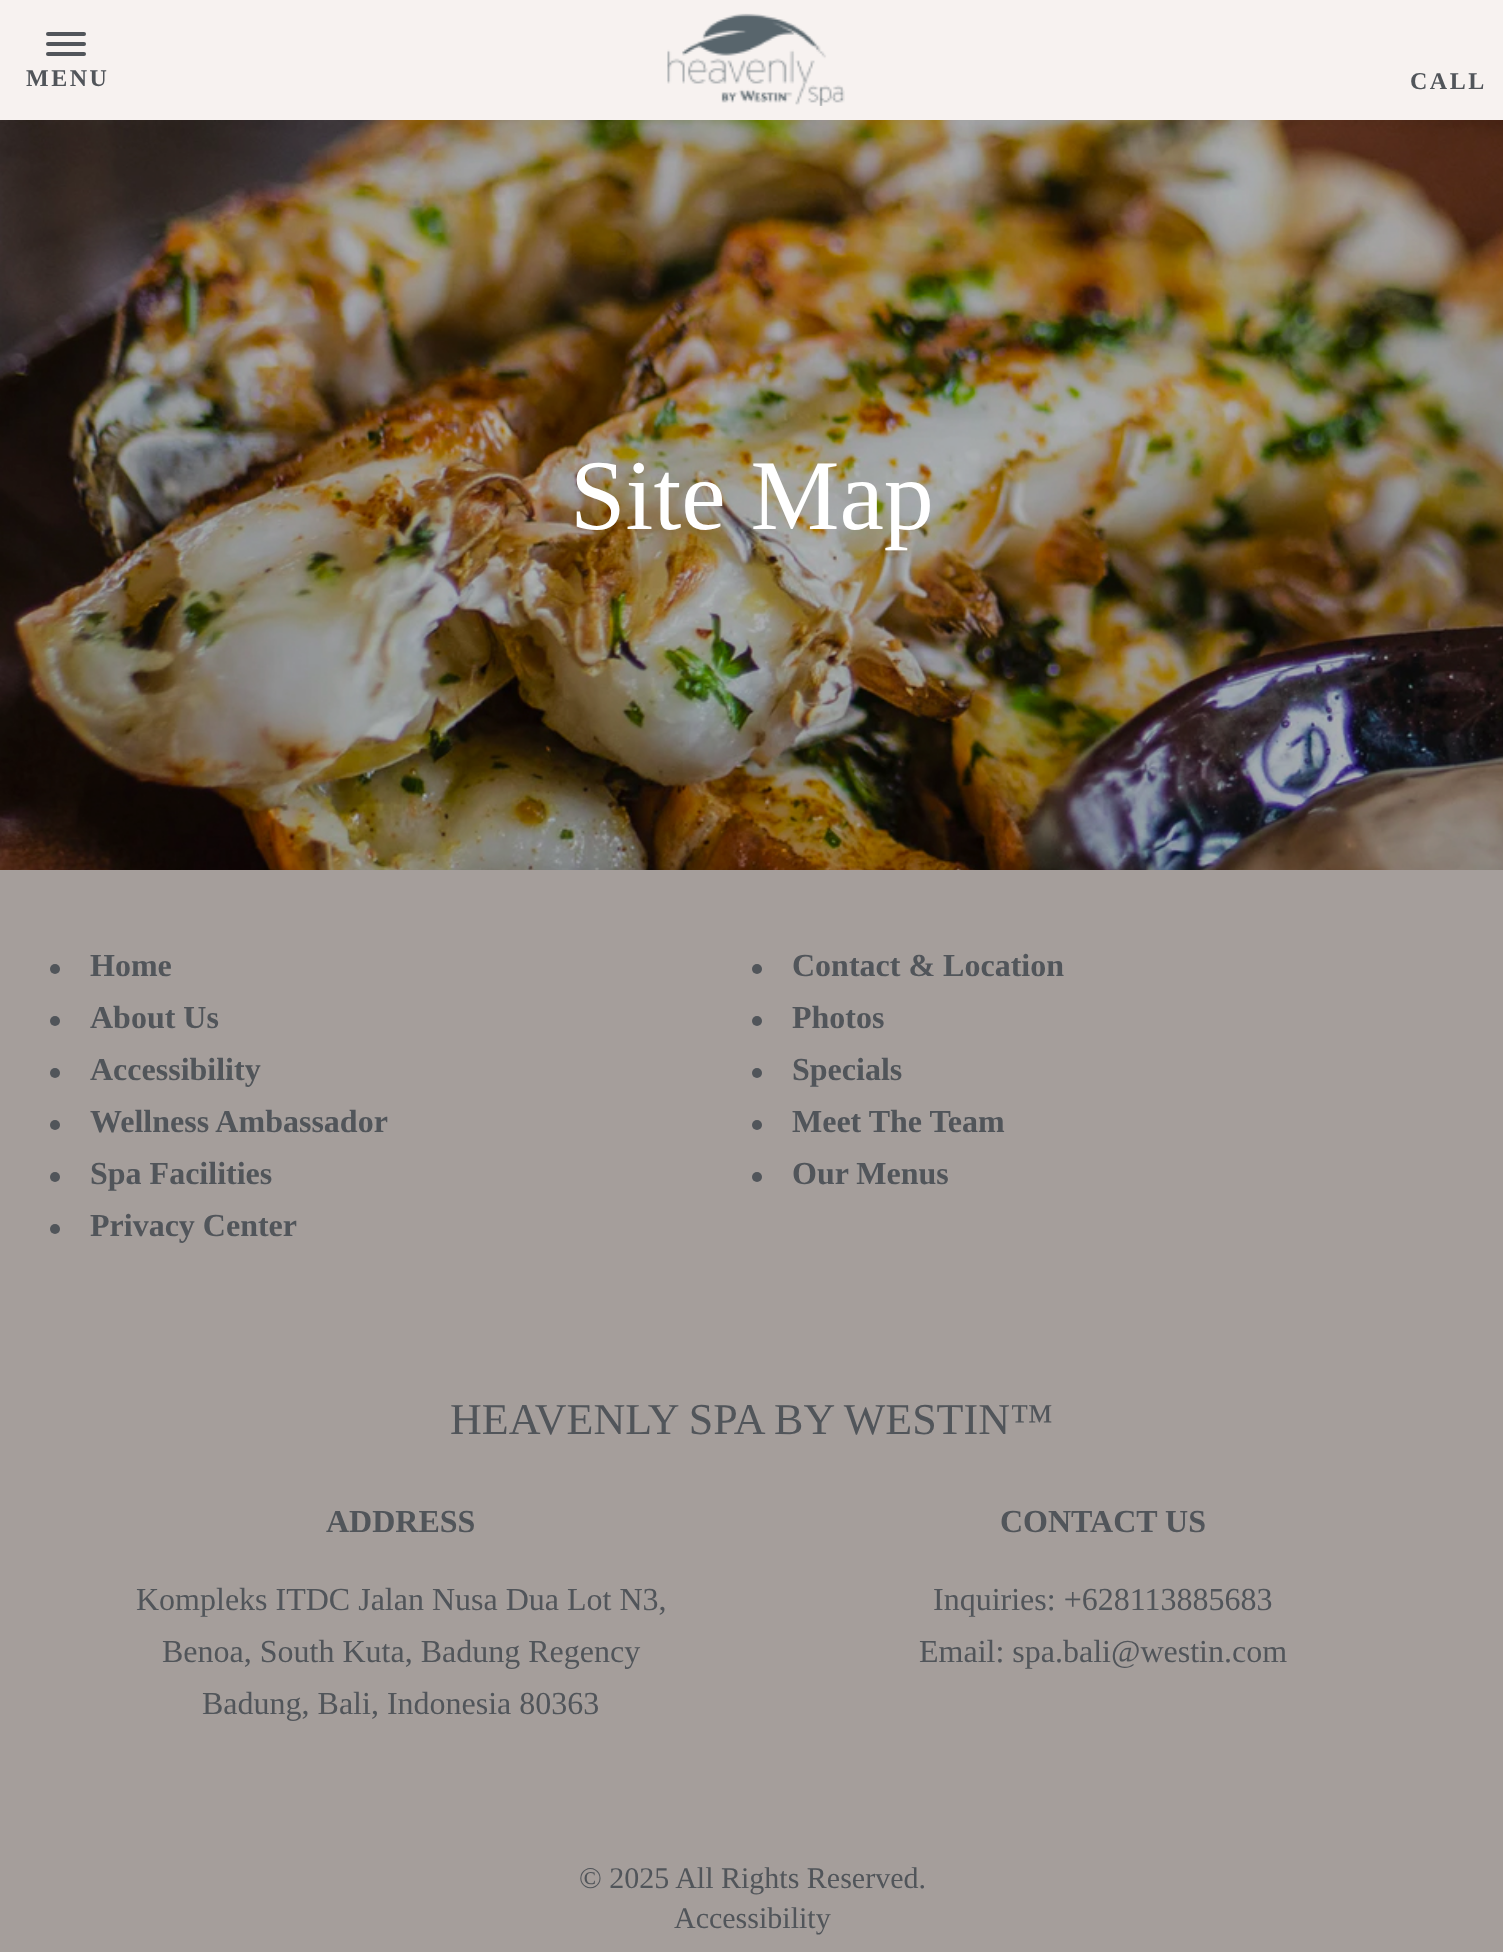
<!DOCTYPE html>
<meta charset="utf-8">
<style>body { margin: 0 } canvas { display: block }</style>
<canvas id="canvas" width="1503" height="1952"></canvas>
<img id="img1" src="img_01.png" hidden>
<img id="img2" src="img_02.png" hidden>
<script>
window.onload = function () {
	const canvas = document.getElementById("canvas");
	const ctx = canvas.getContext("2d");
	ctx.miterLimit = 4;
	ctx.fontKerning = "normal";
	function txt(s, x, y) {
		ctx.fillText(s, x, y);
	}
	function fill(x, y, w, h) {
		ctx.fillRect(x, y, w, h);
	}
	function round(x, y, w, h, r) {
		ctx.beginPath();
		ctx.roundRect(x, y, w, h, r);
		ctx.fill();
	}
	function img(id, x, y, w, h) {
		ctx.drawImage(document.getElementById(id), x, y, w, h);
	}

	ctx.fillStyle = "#F7F2F0";
	fill(0, 0, 1503, 1952);
	ctx.fillStyle = "#51555A";
	round(46, 32, 40, 4, 2);
	round(46, 42, 40, 4, 2);
	round(46, 52, 40, 4, 2);
	img("img1", 667, 13, 178, 93);
	img("img2", 0, 120, 1503, 750);
	ctx.fillStyle = "#A59E9B";
	fill(0, 870, 1503, 1082);
	ctx.fillStyle = "#51555A";
	ctx.beginPath();
	ctx.arc(55, 969, 5, 0, Math.PI * 2);
	ctx.fill();
	ctx.beginPath();
	ctx.arc(757, 969, 5, 0, Math.PI * 2);
	ctx.fill();
	ctx.beginPath();
	ctx.arc(55, 1021, 5, 0, Math.PI * 2);
	ctx.fill();
	ctx.beginPath();
	ctx.arc(757, 1021, 5, 0, Math.PI * 2);
	ctx.fill();
	ctx.beginPath();
	ctx.arc(55, 1073, 5, 0, Math.PI * 2);
	ctx.fill();
	ctx.beginPath();
	ctx.arc(757, 1073, 5, 0, Math.PI * 2);
	ctx.fill();
	ctx.beginPath();
	ctx.arc(55, 1125, 5, 0, Math.PI * 2);
	ctx.fill();
	ctx.beginPath();
	ctx.arc(757, 1125, 5, 0, Math.PI * 2);
	ctx.fill();
	ctx.beginPath();
	ctx.arc(55, 1177, 5, 0, Math.PI * 2);
	ctx.fill();
	ctx.beginPath();
	ctx.arc(757, 1177, 5, 0, Math.PI * 2);
	ctx.fill();
	ctx.beginPath();
	ctx.arc(55, 1229, 5, 0, Math.PI * 2);
	ctx.fill();
	ctx.letterSpacing = "2.5px";
	ctx.font = "bold 24px Liberation Serif";
	txt("MENU", 26, 86);
	txt("CALL", 1410, 89);
	ctx.letterSpacing = "0px";
	ctx.font = "100px Liberation Serif";
	ctx.fillStyle = "#FFFFFF";
	txt("Site Map", 570, 529);
	ctx.font = "bold 32px Liberation Serif";
	ctx.fillStyle = "#51555A";
	txt("Home", 90, 976);
	txt("Contact & Location", 792, 976);
	txt("About Us", 90, 1028);
	txt("Photos", 792, 1028);
	txt("Accessibility", 90, 1080);
	txt("Specials", 792, 1080);
	txt("Wellness Ambassador", 90, 1132);
	txt("Meet The Team", 792, 1132);
	txt("Spa Facilities", 90, 1184);
	txt("Our Menus", 792, 1184);
	txt("Privacy Center", 90, 1236);
	ctx.font = "44px Liberation Serif";
	txt("HEAVENLY SPA BY WESTIN™", 450, 1434);
	ctx.font = "bold 32px Liberation Serif";
	txt("ADDRESS", 326, 1532);
	ctx.font = "32px Liberation Serif";
	txt("Kompleks ITDC Jalan Nusa Dua Lot N3,", 136, 1610);
	txt("Benoa, South Kuta, Badung Regency", 162, 1662);
	txt("Badung, Bali, Indonesia 80363", 202, 1714);
	ctx.font = "bold 32px Liberation Serif";
	txt("CONTACT US", 1000, 1532);
	ctx.font = "32px Liberation Serif";
	txt("Inquiries: +628113885683", 933, 1610);
	txt("Email: spa.bali@westin.com", 919, 1662);
	ctx.font = "30px Liberation Serif";
	txt("© 2025 All Rights Reserved.", 579, 1888);
	txt("Accessibility", 674, 1928);
};
</script>
